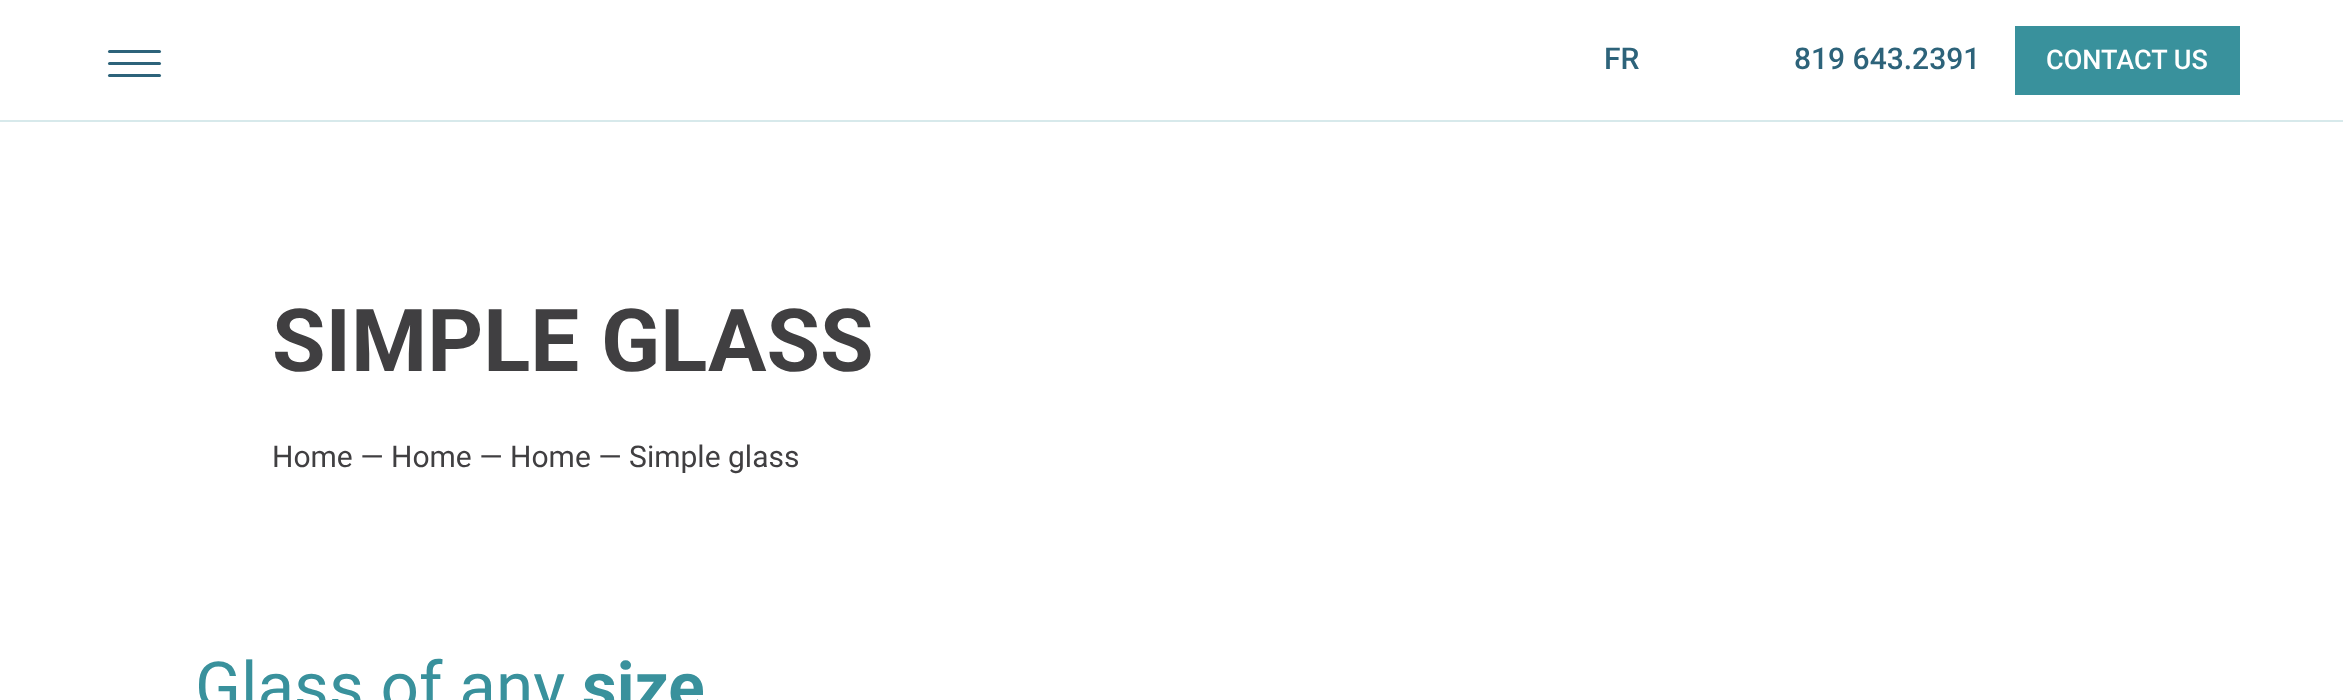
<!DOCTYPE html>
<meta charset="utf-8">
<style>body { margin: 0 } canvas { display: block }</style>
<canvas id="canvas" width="2343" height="700"></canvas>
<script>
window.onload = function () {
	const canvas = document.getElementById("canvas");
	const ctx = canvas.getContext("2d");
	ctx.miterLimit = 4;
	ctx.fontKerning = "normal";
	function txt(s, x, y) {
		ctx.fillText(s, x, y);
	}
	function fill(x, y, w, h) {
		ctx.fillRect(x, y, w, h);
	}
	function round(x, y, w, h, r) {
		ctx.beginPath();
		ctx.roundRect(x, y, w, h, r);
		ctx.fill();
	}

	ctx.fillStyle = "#FFFFFF";
	fill(0, 0, 2343, 700);
	ctx.fillStyle = "#2D637A";
	round(108, 62, 53, 3, 1.5);
	round(108, 50, 53, 3, 1.5);
	round(108, 74, 53, 3, 1.5);
	ctx.fillStyle = "#D7E9EB";
	fill(0, 120, 2343, 2);
	ctx.fillStyle = "#39919C";
	fill(2015, 26, 225, 69);
	ctx.font = "500 30px Roboto";
	ctx.fillStyle = "#2D637A";
	txt("FR", 1604, 69);
	txt("819 643.2391", 1794, 69);
	ctx.font = "500 27px Roboto";
	ctx.fillStyle = "#FFFFFF";
	txt("CONTACT US", 2046, 69);
	ctx.font = "bold 87px Roboto";
	ctx.fillStyle = "#403F41";
	txt("SIMPLE GLASS", 272, 371);
	ctx.font = "30px Roboto";
	txt("Home — Home — Home — Simple glass", 272, 467);
	ctx.font = "67.5px Roboto";
	ctx.fillStyle = "#39919C";
	txt("Glass of any", 195, 710);
	ctx.font = "bold 67.5px Roboto";
	txt("size", 582, 710);
};
</script>
